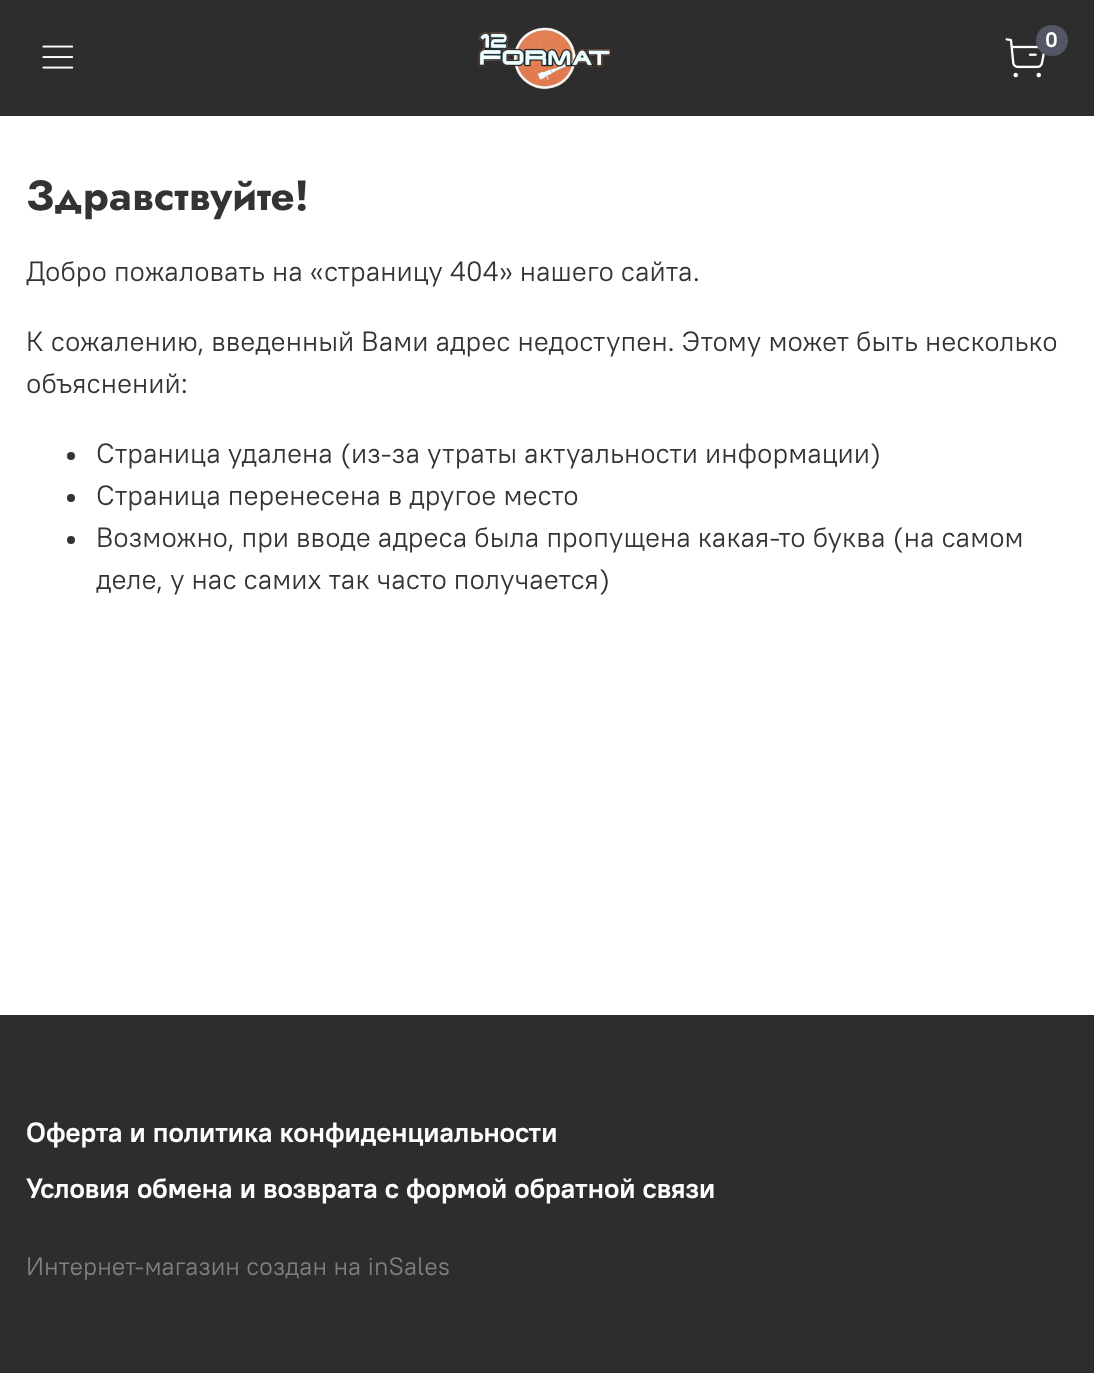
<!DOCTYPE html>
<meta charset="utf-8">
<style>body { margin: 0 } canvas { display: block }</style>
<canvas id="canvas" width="1094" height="1373"></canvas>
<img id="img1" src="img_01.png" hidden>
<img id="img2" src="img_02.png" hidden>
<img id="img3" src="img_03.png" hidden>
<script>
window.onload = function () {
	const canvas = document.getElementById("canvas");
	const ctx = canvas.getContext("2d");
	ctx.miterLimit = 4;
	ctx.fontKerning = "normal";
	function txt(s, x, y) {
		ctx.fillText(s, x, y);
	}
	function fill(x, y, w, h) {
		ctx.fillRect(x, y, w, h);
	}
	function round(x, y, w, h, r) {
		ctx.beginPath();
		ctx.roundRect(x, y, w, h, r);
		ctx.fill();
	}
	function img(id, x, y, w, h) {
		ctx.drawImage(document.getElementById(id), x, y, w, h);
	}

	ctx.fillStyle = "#FFFFFF";
	fill(0, 0, 1094, 1373);
	ctx.fillStyle = "#2D2D2D";
	fill(0, 0, 1094, 116);
	img("img1", 478, 27, 134, 63);
	img("img2", 1005, 38, 40, 40);
	ctx.fillStyle = "#525665";
	round(1036, 25, 32, 31, 15.5);
	img("img3", 42, 45, 32, 24);
	ctx.fillStyle = "#333333";
	ctx.beginPath();
	ctx.arc(71, 456, 4, 0, Math.PI * 2);
	ctx.fill();
	ctx.beginPath();
	ctx.arc(71, 498, 4, 0, Math.PI * 2);
	ctx.fill();
	ctx.beginPath();
	ctx.arc(71, 540, 4, 0, Math.PI * 2);
	ctx.fill();
	ctx.fillStyle = "#2D2D2D";
	fill(0, 1015, 1094, 358);
	ctx.font = "bold 21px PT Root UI";
	ctx.fillStyle = "#FFFFFF";
	txt("0", 1045, 47);
	ctx.font = "bold 42px Jost";
	ctx.fillStyle = "#333333";
	txt("Здравствуйте!", 26, 210);
	ctx.font = "28px PT Root UI";
	txt("Добро пожаловать на «страницу 404» нашего сайта.", 26, 281);
	txt("К сожалению, введенный Вами адрес недоступен. Этому может быть несколько", 26, 351);
	txt("объяснений:", 26, 393);
	txt("Страница удалена (из-за утраты актуальности информации)", 96, 463);
	txt("Страница перенесена в другое место", 96, 505);
	txt("Возможно, при вводе адреса была пропущена какая-то буква (на самом", 96, 547);
	txt("деле, у нас самих так часто получается)", 96, 589);
	ctx.font = "bold 28px PT Root UI";
	ctx.fillStyle = "#FFFFFF";
	txt("Оферта и политика конфиденциальности", 26, 1142);
	txt("Условия обмена и возврата с формой обратной связи", 26, 1198);
	ctx.font = "25.25px PT Root UI";
	ctx.fillStyle = "#808080";
	txt("Интернет-магазин создан на inSales", 26, 1275);
};
</script>
